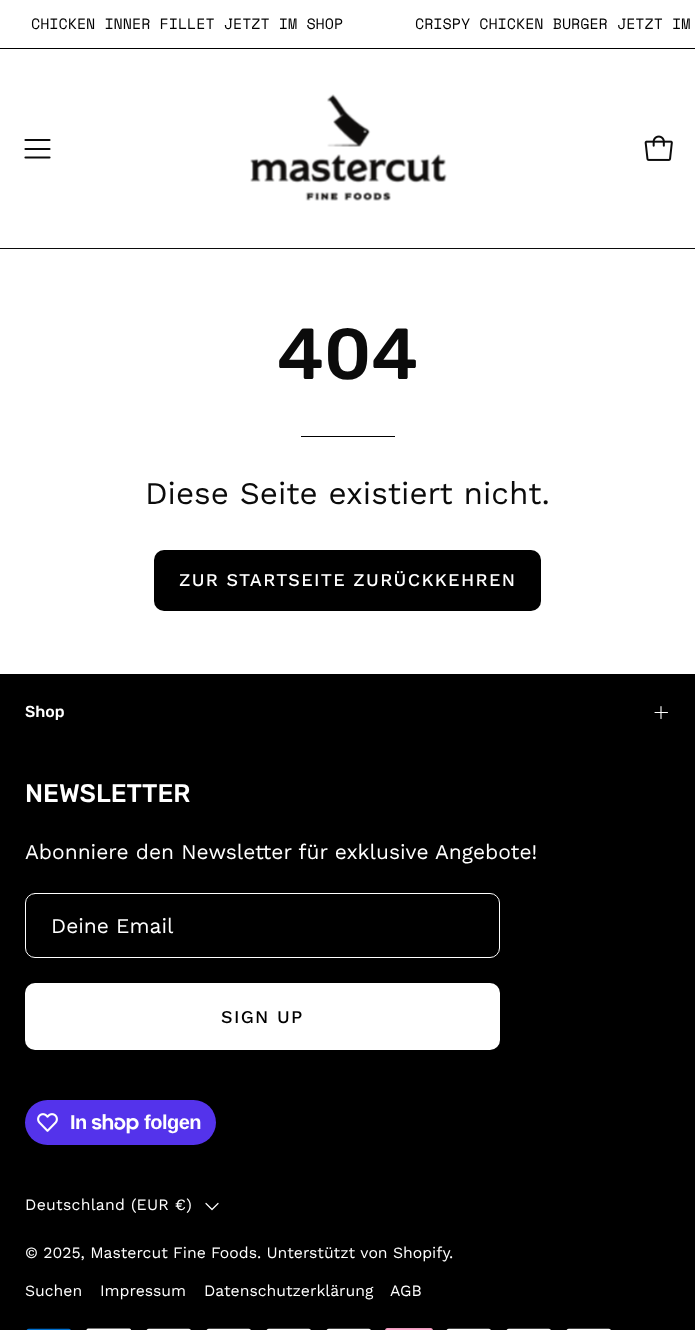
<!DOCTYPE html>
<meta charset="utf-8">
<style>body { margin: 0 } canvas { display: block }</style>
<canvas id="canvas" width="695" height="1330"></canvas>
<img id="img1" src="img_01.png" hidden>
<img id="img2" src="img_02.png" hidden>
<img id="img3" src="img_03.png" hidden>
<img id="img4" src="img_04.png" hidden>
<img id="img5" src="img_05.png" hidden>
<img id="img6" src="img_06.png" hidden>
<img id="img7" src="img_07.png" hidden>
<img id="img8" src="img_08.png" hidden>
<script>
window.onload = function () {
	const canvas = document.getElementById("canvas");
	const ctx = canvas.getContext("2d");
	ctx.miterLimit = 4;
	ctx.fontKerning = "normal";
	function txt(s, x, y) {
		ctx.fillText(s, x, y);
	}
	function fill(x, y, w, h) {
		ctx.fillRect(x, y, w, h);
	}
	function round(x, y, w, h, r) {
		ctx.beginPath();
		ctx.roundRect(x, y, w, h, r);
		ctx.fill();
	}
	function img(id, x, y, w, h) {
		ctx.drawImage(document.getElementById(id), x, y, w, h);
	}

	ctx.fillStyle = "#FFFFFF";
	fill(0, 0, 695, 1330);
	ctx.fillStyle = "#000000";
	fill(0, 48, 695, 1);
	ctx.beginPath();
	ctx.moveTo(25.5, 149);
	ctx.lineTo(49.5, 149);
	ctx.moveTo(25.5, 140);
	ctx.lineTo(49.5, 140);
	ctx.moveTo(25.5, 157.5);
	ctx.lineTo(49.5, 157.5);
	ctx.strokeStyle = "#0B0B0B";
	ctx.lineWidth = 2.2;
	ctx.lineCap = "round";
	ctx.lineJoin = "round";
	ctx.stroke();
	img("img1", 250, 94, 197, 107);
	img("img2", 644, 135, 29, 26);
	ctx.fillStyle = "#0B0B0B";
	fill(0, 248, 695, 1);
	ctx.fillStyle = "#000000";
	fill(301, 436, 94, 1);
	round(154, 550, 387, 61, 10);
	fill(0, 674, 695, 656);
	ctx.beginPath();
	ctx.moveTo(655, 712.5);
	ctx.lineTo(667.5, 712.5);
	ctx.moveTo(661, 706.5);
	ctx.lineTo(661, 718.5);
	ctx.strokeStyle = "#FFFFFF";
	ctx.lineWidth = 1.1;
	ctx.stroke();
	ctx.beginPath();
	ctx.roundRect(25.5, 893.5, 474, 64, 9.5);
	ctx.lineWidth = 1;
	ctx.lineJoin = "miter";
	ctx.stroke();
	ctx.fillStyle = "#FFFFFF";
	round(25, 983, 475, 67, 10);
	ctx.fillStyle = "#5433EB";
	round(25, 1100, 191, 45, 22.5);
	img("img3", 37, 1113, 21, 19);
	img("img4", 91, 1114, 48, 20);
	ctx.beginPath();
	ctx.moveTo(218, 1203.5);
	ctx.lineTo(212, 1209.5);
	ctx.lineTo(206, 1203.5);
	ctx.lineWidth = 1.2;
	ctx.lineJoin = "round";
	ctx.stroke();
	img("img5", 26, 1328, 45, 2);
	img("img6", 86, 1328, 45, 2);
	img("img7", 146, 1328, 45, 2);
	img("img7", 206, 1328, 45, 2);
	img("img7", 266, 1328, 45, 2);
	img("img7", 326, 1328, 45, 2);
	img("img8", 385, 1328, 48, 2);
	img("img7", 446, 1328, 45, 2);
	img("img7", 506, 1328, 45, 2);
	img("img7", 566, 1328, 45, 2);
	ctx.font = "15px Space Mono";
	ctx.fillStyle = "#000000";
	txt("CHICKEN INNER FILLET JETZT IM SHOP", 31, 29);
	txt("CRISPY CHICKEN BURGER JETZT IM", 415, 29);
	ctx.font = "500 72px Rubik";
	ctx.fillStyle = "#0B0B0B";
	txt("404", 277, 379);
	ctx.font = "31.5px Work Sans";
	txt("Diese Seite existiert nicht.", 145, 504);
	ctx.letterSpacing = "1.35px";
	ctx.font = "500 18px Work Sans";
	ctx.fillStyle = "#FFFFFF";
	txt("ZUR STARTSEITE ZURÜCKKEHREN", 179, 586);
	ctx.letterSpacing = "0px";
	ctx.font = "500 16px Rubik";
	txt("Shop", 25, 717);
	ctx.font = "500 25.5px Rubik";
	txt("NEWSLETTER", 25, 802);
	ctx.font = "21px Work Sans";
	txt("Abonniere den Newsletter für exklusive Angebote!", 25, 859);
	txt("Deine Email", 51, 933);
	ctx.letterSpacing = "1.35px";
	ctx.font = "500 18px Work Sans";
	ctx.fillStyle = "#000000";
	txt("SIGN UP", 221, 1023);
	ctx.letterSpacing = "-0.5px";
	ctx.font = "bold 20px Liberation Sans";
	ctx.fillStyle = "#FFFFFF";
	txt("In", 70, 1129);
	txt("folgen", 144, 1129);
	ctx.letterSpacing = "0.3px";
	ctx.font = "15.75px Work Sans";
	txt("Deutschland (EUR €)", 25, 1210);
	ctx.letterSpacing = "0px";
	txt("© 2025, Mastercut Fine Foods. Unterstützt von Shopify", 25, 1258);
	txt(".", 449, 1258);
	txt("Suchen", 25, 1296);
	txt("Impressum", 100, 1296);
	txt("Datenschutzerklärung", 204, 1296);
	txt("AGB", 390, 1296);
};
</script>
